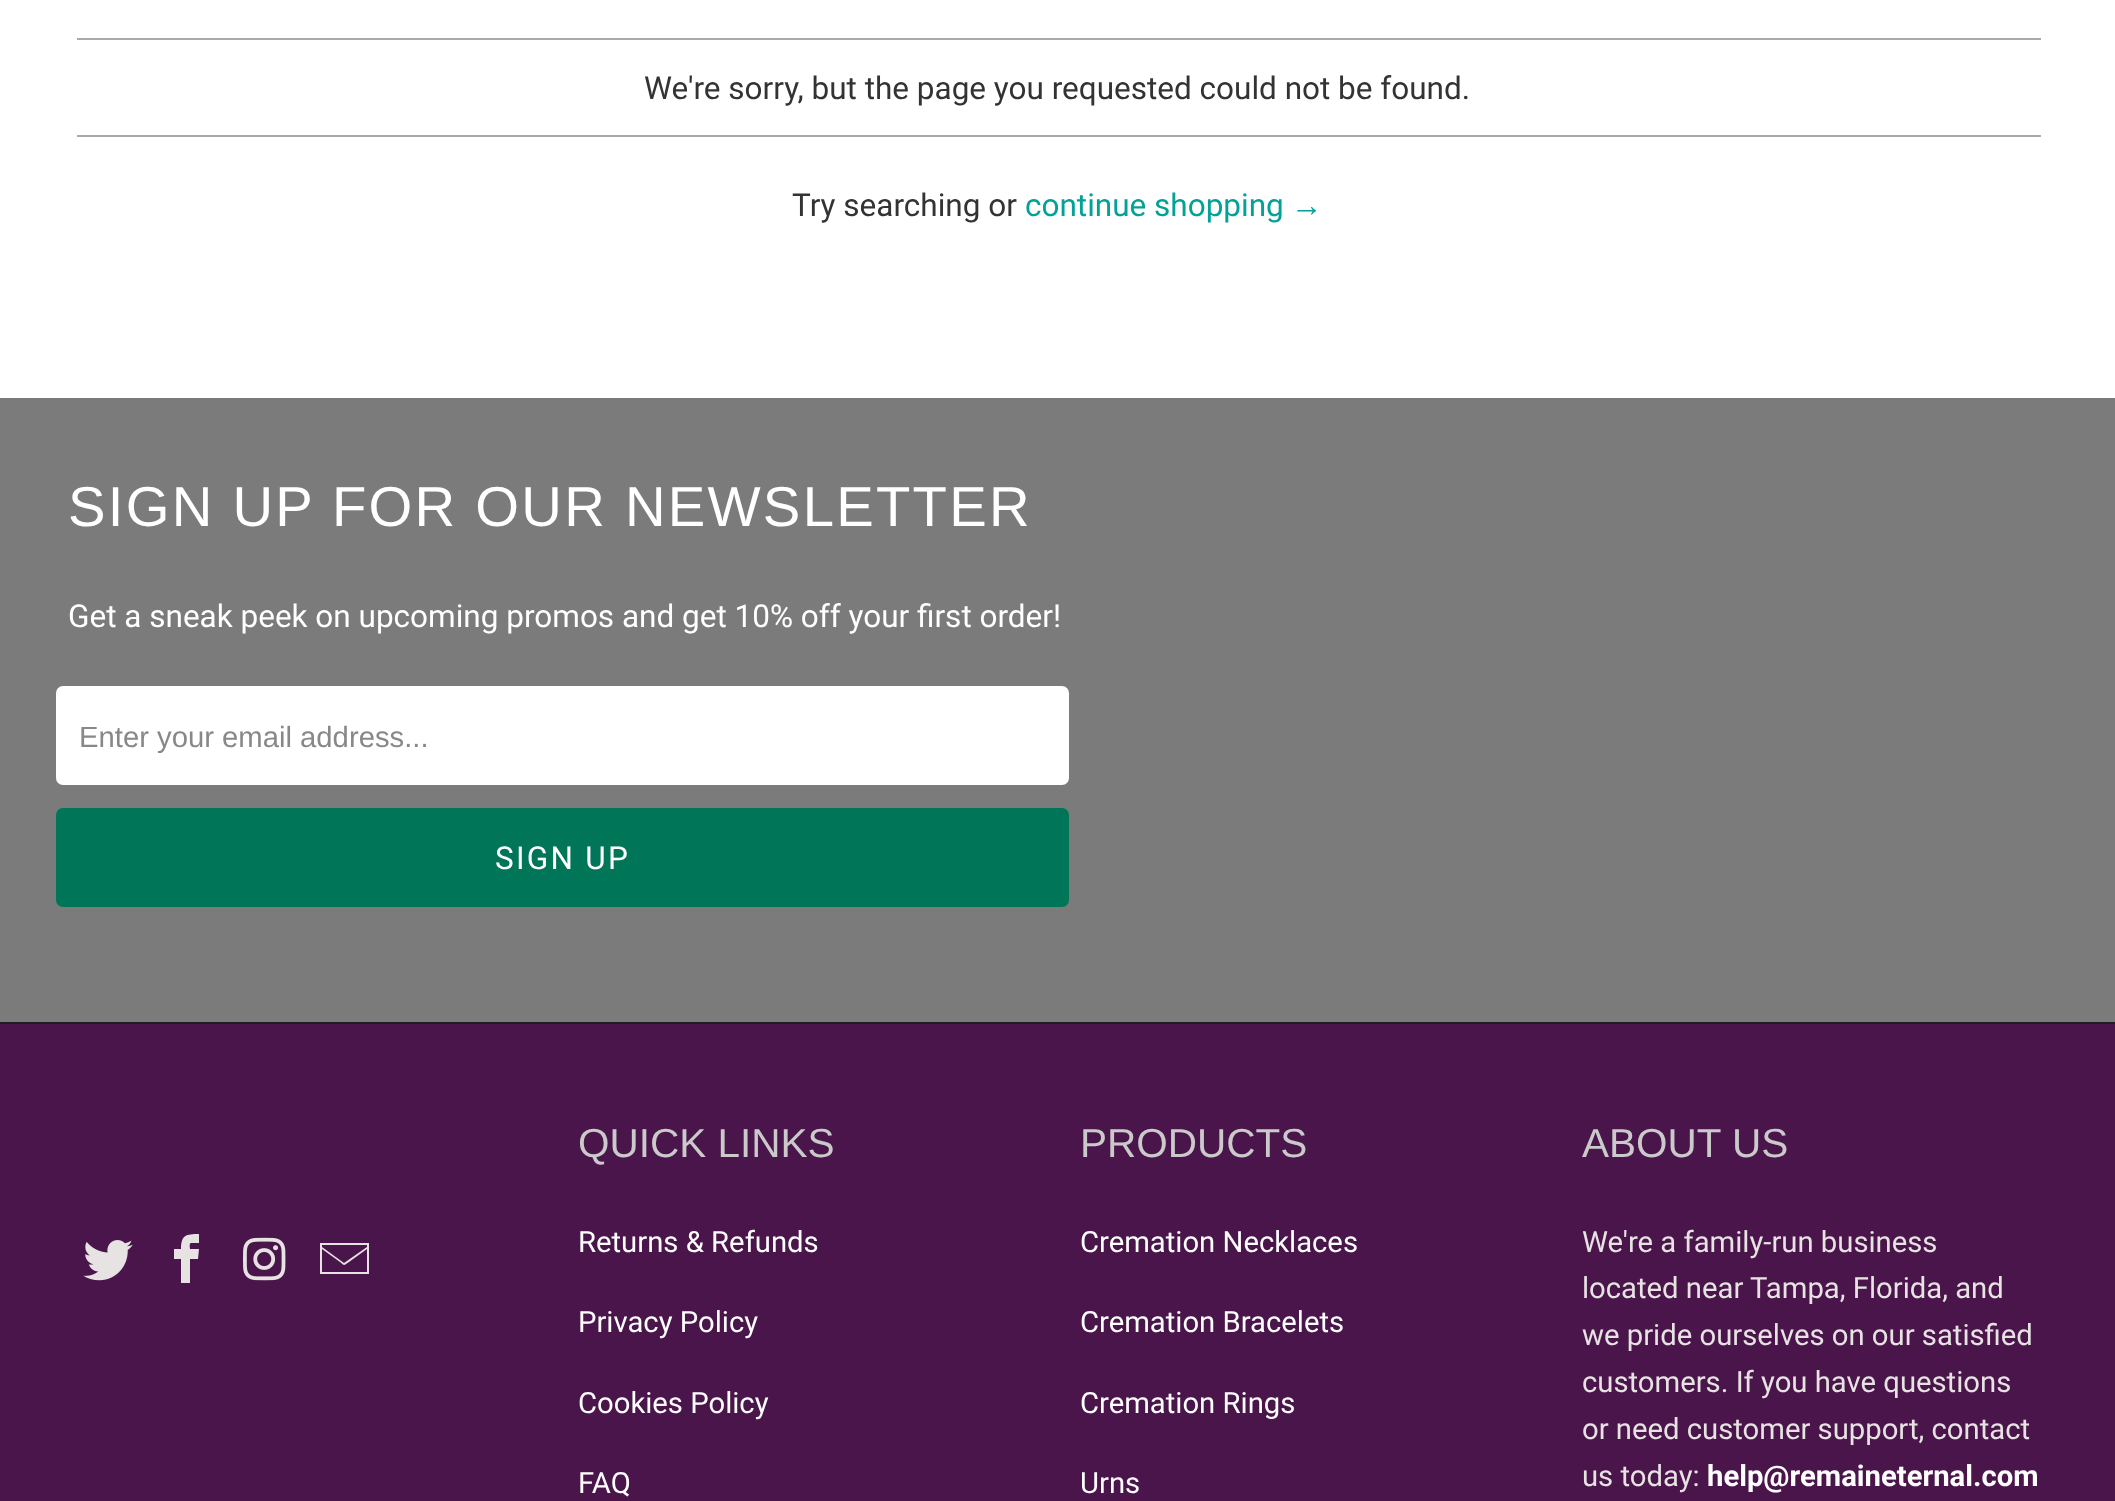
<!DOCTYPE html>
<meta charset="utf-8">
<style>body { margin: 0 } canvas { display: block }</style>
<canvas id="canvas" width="2115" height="1501"></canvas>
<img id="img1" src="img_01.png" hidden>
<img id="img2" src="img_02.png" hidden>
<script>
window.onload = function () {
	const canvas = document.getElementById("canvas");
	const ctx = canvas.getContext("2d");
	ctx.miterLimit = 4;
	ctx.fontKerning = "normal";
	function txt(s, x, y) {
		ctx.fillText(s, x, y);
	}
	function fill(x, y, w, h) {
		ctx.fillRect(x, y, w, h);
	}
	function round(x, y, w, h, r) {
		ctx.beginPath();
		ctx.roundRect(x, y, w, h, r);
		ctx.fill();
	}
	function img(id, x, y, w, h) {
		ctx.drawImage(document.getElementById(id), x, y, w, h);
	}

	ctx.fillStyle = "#FFFFFF";
	fill(0, 0, 2115, 1501);
	ctx.fillStyle = "#AAAAAA";
	fill(77, 38, 1964, 2);
	fill(77, 135, 1964, 2);
	ctx.fillStyle = "#7C7B7B";
	fill(0, 398, 2115, 624);
	ctx.fillStyle = "#FFFFFF";
	round(56, 686, 1013, 99, 7);
	ctx.fillStyle = "#007557";
	ctx.beginPath();
	ctx.roundRect(57, 809, 1011, 97, 6);
	ctx.fill();
	ctx.strokeStyle = "#007557";
	ctx.lineWidth = 2;
	ctx.stroke();
	ctx.fillStyle = "#4A154B";
	fill(0, 1024, 2115, 477);
	ctx.fillStyle = "#1B1F23";
	fill(0, 1022, 2115, 2);
	img("img1", 83, 1240, 50, 41);
	ctx.fillStyle = "#E7E3E3";
	ctx.beginPath();
	ctx.moveTo(191, 1243);
	ctx.lineTo(199, 1243);
	ctx.lineTo(199, 1234);
	ctx.bezierCurveTo(186, 1234, 181, 1235, 181, 1249);
	ctx.lineTo(174, 1249);
	ctx.lineTo(174, 1259);
	ctx.lineTo(181, 1259);
	ctx.lineTo(181, 1283);
	ctx.lineTo(190, 1283);
	ctx.lineTo(190, 1259);
	ctx.lineTo(198, 1259);
	ctx.lineTo(199, 1249);
	ctx.lineTo(190, 1249);
	ctx.bezierCurveTo(190, 1248, 189, 1243, 191, 1243);
	ctx.closePath();
	ctx.fill();
	img("img2", 243, 1237, 43, 44);
	ctx.beginPath();
	ctx.moveTo(320, 1243);
	ctx.lineTo(320, 1274);
	ctx.lineTo(369, 1274);
	ctx.lineTo(369, 1243);
	ctx.closePath();
	ctx.moveTo(367, 1245);
	ctx.lineTo(367, 1247);
	ctx.lineTo(344, 1263);
	ctx.lineTo(322, 1247);
	ctx.lineTo(322, 1245);
	ctx.closePath();
	ctx.moveTo(322, 1272);
	ctx.lineTo(322, 1249);
	ctx.lineTo(340, 1262);
	ctx.bezierCurveTo(345, 1266, 343, 1266, 349, 1262);
	ctx.lineTo(367, 1249);
	ctx.lineTo(367, 1272);
	ctx.closePath();
	ctx.fill();
	ctx.font = "31.5px Roboto";
	ctx.fillStyle = "#333333";
	txt("We're sorry, but the page you requested could not be found.", 644, 99);
	txt("Try searching or", 792, 216);
	ctx.fillStyle = "#03A196";
	txt("continue shopping", 1025, 216);
	ctx.font = "31.5px Liberation Sans";
	txt("→", 1291, 216);
	ctx.letterSpacing = "2.25px";
	ctx.font = "56.25px Arimo";
	ctx.fillStyle = "#FFFFFF";
	txt("SIGN UP FOR OUR NEWSLETTER", 68, 526);
	ctx.letterSpacing = "0px";
	ctx.font = "31.5px Roboto";
	txt("Get a sneak peek on upcoming promos and get 10% off your first order!", 68, 627);
	ctx.font = "29.25px Liberation Sans";
	ctx.fillStyle = "#888888";
	txt("Enter your email address...", 79, 747);
	ctx.letterSpacing = "2.25px";
	ctx.font = "31.5px Roboto";
	ctx.fillStyle = "#FFFFFF";
	txt("SIGN UP", 495, 869);
	ctx.letterSpacing = "0px";
	ctx.font = "40.5px Arimo";
	ctx.fillStyle = "#CACACA";
	txt("QUICK LINKS", 578, 1157);
	ctx.font = "29.25px Roboto";
	ctx.fillStyle = "#FFFFFF";
	txt("Returns & Refunds", 578, 1252);
	txt("Privacy Policy", 578, 1332);
	txt("Cookies Policy", 578, 1413);
	txt("FAQ", 578, 1493);
	ctx.font = "40.5px Arimo";
	ctx.fillStyle = "#CACACA";
	txt("PRODUCTS", 1080, 1157);
	ctx.font = "29.25px Roboto";
	ctx.fillStyle = "#FFFFFF";
	txt("Cremation Necklaces", 1080, 1252);
	txt("Cremation Bracelets", 1080, 1332);
	txt("Cremation Rings", 1080, 1413);
	txt("Urns", 1080, 1493);
	ctx.font = "40.5px Arimo";
	ctx.fillStyle = "#CACACA";
	txt("ABOUT US", 1582, 1157);
	ctx.font = "29.25px Roboto";
	ctx.fillStyle = "#E7E3E3";
	txt("We're a family-run business", 1582, 1252);
	txt("located near Tampa, Florida, and", 1582, 1298);
	txt("we pride ourselves on our satisfied", 1582, 1345);
	txt("customers. If you have questions", 1582, 1392);
	txt("or need customer support, contact", 1582, 1439);
	txt("us today:", 1582, 1486);
	ctx.font = "bold 29.25px Roboto";
	ctx.fillStyle = "#FFFFFF";
	txt("help@remaineternal.com", 1707, 1486);
};
</script>
